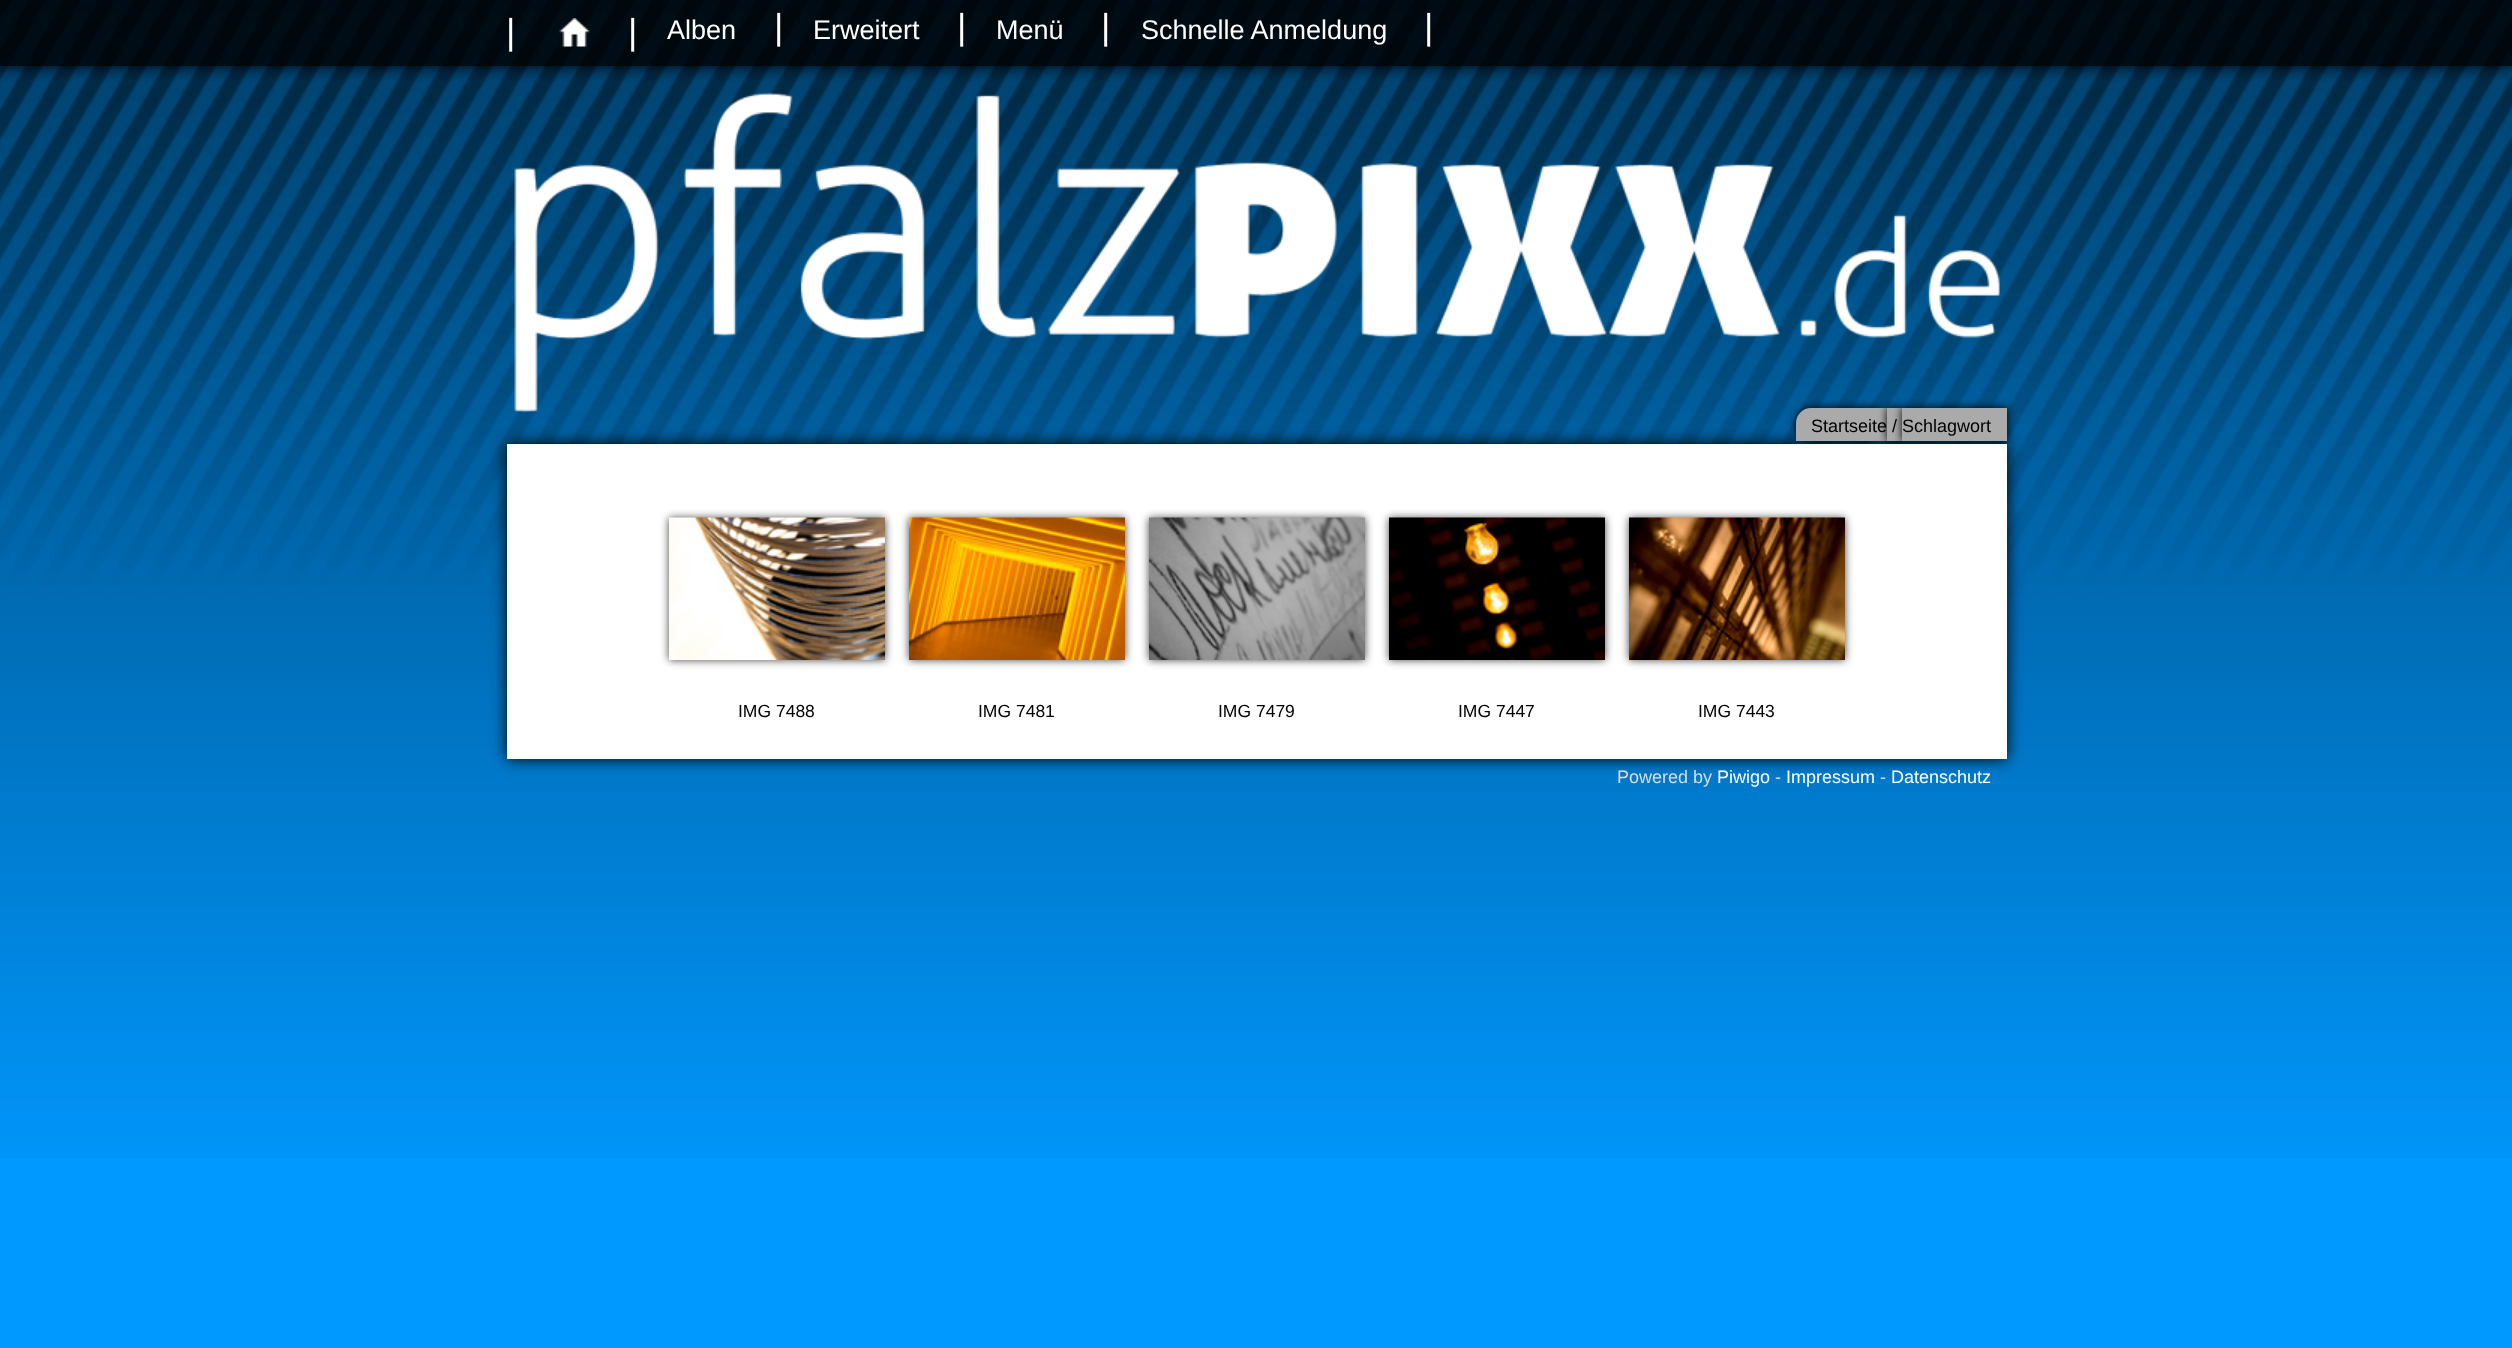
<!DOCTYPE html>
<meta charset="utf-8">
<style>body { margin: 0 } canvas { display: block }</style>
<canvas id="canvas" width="2512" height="1348"></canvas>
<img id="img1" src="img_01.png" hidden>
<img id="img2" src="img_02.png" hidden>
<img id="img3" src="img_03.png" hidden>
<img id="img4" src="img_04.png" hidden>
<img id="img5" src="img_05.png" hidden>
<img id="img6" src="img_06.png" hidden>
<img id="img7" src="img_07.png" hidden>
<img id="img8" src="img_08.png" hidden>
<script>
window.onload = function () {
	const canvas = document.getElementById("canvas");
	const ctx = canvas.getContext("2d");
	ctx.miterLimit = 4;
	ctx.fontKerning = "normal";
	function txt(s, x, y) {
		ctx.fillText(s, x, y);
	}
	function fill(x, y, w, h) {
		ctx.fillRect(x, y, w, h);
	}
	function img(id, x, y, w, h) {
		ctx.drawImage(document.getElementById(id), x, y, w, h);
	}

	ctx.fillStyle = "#0099FF";
	fill(0, 0, 2512, 1348);
	img("img1", 0, 0, 2512, 1159);
	ctx.save();
	ctx.beginPath();
	ctx.rect(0, 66, 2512, 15);
	ctx.clip();
	ctx.fillStyle = "#000000";
	ctx.filter = "blur(7.5px)";
	ctx.beginPath();
	ctx.rect(0, 0, 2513, 66);
	ctx.fill();
	ctx.filter = "none";
	ctx.restore();
	ctx.fillStyle = "rgba(0, 0, 0, 0.8)";
	fill(0, 0, 2512, 66);
	img("img2", 559, 18, 31, 29);
	img("img3", 514, 92, 1486, 321);
	ctx.fillStyle = "#000000";
	ctx.filter = "blur(7.5px)";
	ctx.beginPath();
	ctx.rect(507, 444, 1500, 315);
	ctx.fill();
	ctx.filter = "none";
	ctx.fillStyle = "#FFFFFF";
	fill(507, 444, 1500, 315);
	ctx.save();
	ctx.beginPath();
	ctx.rect(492, 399, 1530, 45);
	ctx.clip();
	ctx.fillStyle = "#000000";
	ctx.filter = "blur(4px)";
	ctx.beginPath();
	ctx.roundRect(1796, 408, 91, 33, 15);
	ctx.fill();
	ctx.filter = "none";
	ctx.restore();
	ctx.fillStyle = "#AAAAAA";
	ctx.beginPath();
	ctx.roundRect(1796, 408, 91, 33, [15, 0, 0, 0]);
	ctx.fill();
	ctx.save();
	ctx.beginPath();
	ctx.rect(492, 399, 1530, 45);
	ctx.clip();
	ctx.fillStyle = "#000000";
	ctx.filter = "blur(4px)";
	ctx.beginPath();
	ctx.rect(1887, 408, 15, 33);
	ctx.fill();
	ctx.filter = "none";
	ctx.restore();
	fill(1887, 408, 15, 33);
	ctx.save();
	ctx.beginPath();
	ctx.rect(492, 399, 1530, 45);
	ctx.clip();
	ctx.fillStyle = "#000000";
	ctx.filter = "blur(4px)";
	ctx.beginPath();
	ctx.rect(1902, 408, 105, 33);
	ctx.fill();
	ctx.filter = "none";
	ctx.restore();
	fill(1902, 408, 105, 33);
	ctx.fillStyle = "#444444";
	ctx.filter = "blur(4px)";
	ctx.beginPath();
	ctx.rect(669, 518, 216, 142);
	ctx.fill();
	ctx.filter = "none";
	img("img4", 669, 517, 216, 143);
	ctx.filter = "blur(4px)";
	ctx.beginPath();
	ctx.rect(909, 518, 216, 142);
	ctx.fill();
	ctx.filter = "none";
	img("img5", 909, 517, 216, 143);
	ctx.filter = "blur(4px)";
	ctx.beginPath();
	ctx.rect(1149, 518, 216, 142);
	ctx.fill();
	ctx.filter = "none";
	img("img6", 1149, 517, 216, 143);
	ctx.filter = "blur(4px)";
	ctx.beginPath();
	ctx.rect(1389, 518, 216, 142);
	ctx.fill();
	ctx.filter = "none";
	img("img7", 1389, 517, 216, 143);
	ctx.filter = "blur(4px)";
	ctx.beginPath();
	ctx.rect(1629, 518, 216, 142);
	ctx.fill();
	ctx.filter = "none";
	img("img8", 1629, 517, 216, 143);
	ctx.font = "36px Liberation Sans";
	ctx.fillStyle = "#FFFFFF";
	txt("|", 506, 44);
	txt("|", 628, 44);
	ctx.font = "27px Liberation Sans";
	txt("Alben", 667, 39);
	ctx.font = "36px Liberation Sans";
	txt("|", 774, 39);
	ctx.font = "27px Liberation Sans";
	txt("Erweitert", 813, 39);
	ctx.font = "36px Liberation Sans";
	txt("|", 957, 39);
	ctx.font = "27px Liberation Sans";
	txt("Menü", 996, 39);
	ctx.font = "36px Liberation Sans";
	txt("|", 1101, 39);
	ctx.font = "27px Liberation Sans";
	txt("Schnelle Anmeldung", 1141, 39);
	ctx.font = "36px Liberation Sans";
	txt("|", 1424, 39);
	ctx.font = "18px Liberation Sans";
	ctx.fillStyle = "#000000";
	txt("Startseite / Schlagwort", 1811, 432);
	ctx.font = "17.5px Liberation Sans";
	txt("IMG 7488", 738, 717);
	txt("IMG 7481", 978, 717);
	txt("IMG 7479", 1218, 717);
	txt("IMG 7447", 1458, 717);
	txt("IMG 7443", 1698, 717);
	ctx.font = "18px Liberation Sans";
	ctx.fillStyle = "#DDDDDD";
	txt("Powered by", 1617, 783);
	ctx.fillStyle = "#FFFFFF";
	txt("Piwigo", 1717, 783);
	ctx.fillStyle = "#DDDDDD";
	txt("-", 1775, 783);
	ctx.fillStyle = "#FFFFFF";
	txt("Impressum", 1786, 783);
	ctx.fillStyle = "#DDDDDD";
	txt("-", 1880, 783);
	ctx.fillStyle = "#FFFFFF";
	txt("Datenschutz", 1891, 783);
};
</script>
